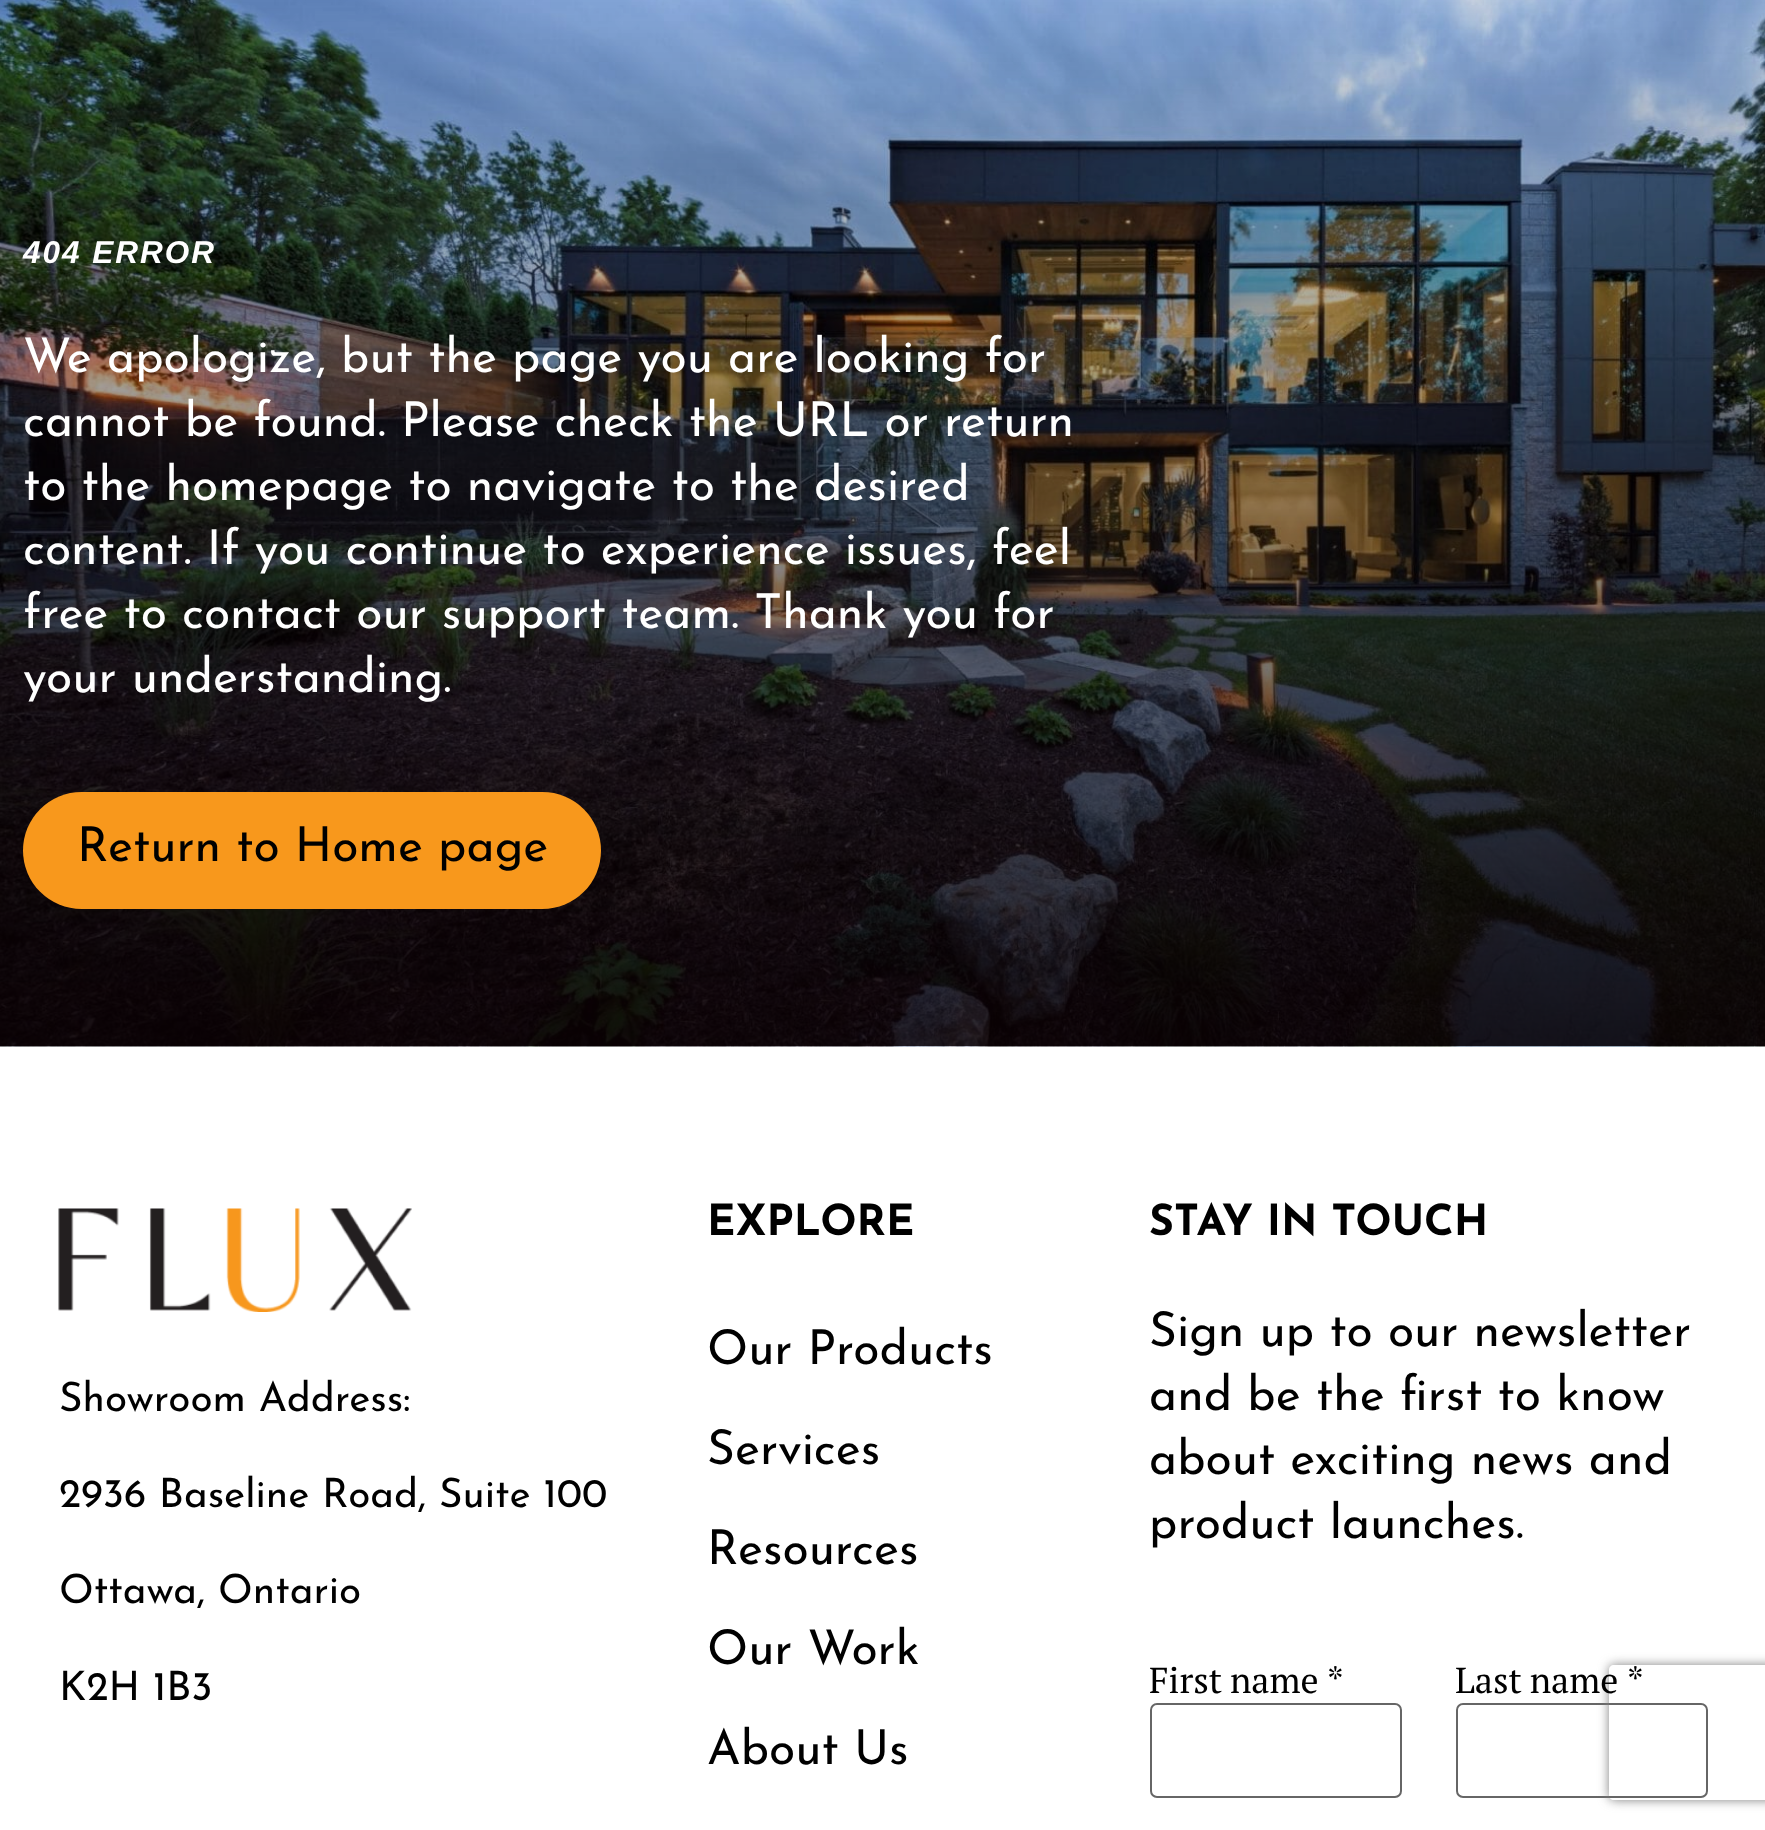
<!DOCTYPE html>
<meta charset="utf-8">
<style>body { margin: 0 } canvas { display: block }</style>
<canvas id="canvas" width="1765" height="1830"></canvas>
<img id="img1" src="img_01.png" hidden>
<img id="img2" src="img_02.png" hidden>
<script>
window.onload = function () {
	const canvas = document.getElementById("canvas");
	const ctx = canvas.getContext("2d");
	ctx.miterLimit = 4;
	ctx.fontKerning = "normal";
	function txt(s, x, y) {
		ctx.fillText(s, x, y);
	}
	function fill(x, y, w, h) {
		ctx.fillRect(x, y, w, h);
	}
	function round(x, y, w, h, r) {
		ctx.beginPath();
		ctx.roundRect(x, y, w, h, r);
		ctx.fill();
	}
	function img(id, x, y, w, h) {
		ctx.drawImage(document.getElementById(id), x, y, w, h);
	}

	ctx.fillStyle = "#FFFFFF";
	fill(0, 0, 1765, 1830);
	img("img1", 0, 0, 1765, 1047);
	ctx.fillStyle = "#F8981C";
	round(23, 792, 578, 117, 58.5);
	img("img2", 58, 1208, 354, 104);
	ctx.beginPath();
	ctx.roundRect(1151, 1704, 250, 93, 6);
	ctx.strokeStyle = "#666666";
	ctx.lineWidth = 2;
	ctx.stroke();
	ctx.beginPath();
	ctx.roundRect(1457, 1704, 250, 93, 6);
	ctx.stroke();
	ctx.save();
	ctx.beginPath();
	ctx.moveTo(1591, 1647);
	ctx.lineTo(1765, 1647);
	ctx.lineTo(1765, 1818);
	ctx.lineTo(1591, 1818);
	ctx.closePath();
	ctx.moveTo(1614, 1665);
	ctx.lineTo(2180, 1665);
	ctx.bezierCurveTo(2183, 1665, 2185, 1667, 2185, 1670);
	ctx.lineTo(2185, 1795);
	ctx.bezierCurveTo(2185, 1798, 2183, 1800, 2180, 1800);
	ctx.lineTo(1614, 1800);
	ctx.bezierCurveTo(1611, 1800, 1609, 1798, 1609, 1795);
	ctx.lineTo(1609, 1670);
	ctx.bezierCurveTo(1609, 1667, 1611, 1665, 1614, 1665);
	ctx.closePath();
	ctx.clip("evenodd");
	ctx.fillStyle = "#808080";
	ctx.filter = "blur(5.5px)";
	ctx.beginPath();
	ctx.roundRect(1609, 1665, 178, 135, 5);
	ctx.fill();
	ctx.filter = "none";
	ctx.restore();
	ctx.letterSpacing = "2px";
	ctx.font = "italic bold 31.5px Liberation Sans";
	ctx.fillStyle = "#FFFFFF";
	txt("404 ERROR", 23, 263);
	ctx.letterSpacing = "0px";
	ctx.font = "48px Josefin Sans";
	txt("We apologize, but the page you are looking for", 23, 372);
	txt("cannot be found. Please check the URL or return", 23, 436);
	txt("to the homepage to navigate to the desired", 23, 500);
	txt("content. If you continue to experience issues, feel", 23, 564);
	txt("free to contact our support team. Thank you for", 23, 628);
	txt("your understanding.", 23, 692);
	ctx.fillStyle = "#000000";
	txt("Return to Home page", 77, 861);
	ctx.font = "40.5px Josefin Sans";
	txt("Showroom Address:", 59, 1411);
	txt("2936 Baseline Road, Suite 100", 59, 1507);
	txt("Ottawa, Ontario", 59, 1603);
	txt("K2H 1B3", 59, 1700);
	ctx.font = "bold 42.75px Josefin Sans";
	txt("EXPLORE", 707, 1235);
	ctx.font = "48px Josefin Sans";
	txt("Our Products", 707, 1364);
	txt("Services", 707, 1464);
	txt("Resources", 707, 1564);
	txt("Our Work", 707, 1664);
	txt("About Us", 707, 1764);
	ctx.font = "bold 42.75px Josefin Sans";
	txt("STAY IN TOUCH", 1149, 1235);
	ctx.font = "48px Josefin Sans";
	txt("Sign up to our newsletter", 1149, 1346);
	txt("and be the first to know", 1149, 1410);
	txt("about exciting news and", 1149, 1474);
	txt("product launches.", 1149, 1538);
	ctx.wordSpacing = "-1px";
	ctx.font = "36px PT Serif";
	txt("First name", 1149, 1693);
	ctx.wordSpacing = "0px";
	txt("*", 1327, 1693);
	ctx.wordSpacing = "-1px";
	txt("Last name", 1455, 1693);
	ctx.wordSpacing = "0px";
	txt("*", 1627, 1693);
};
</script>
